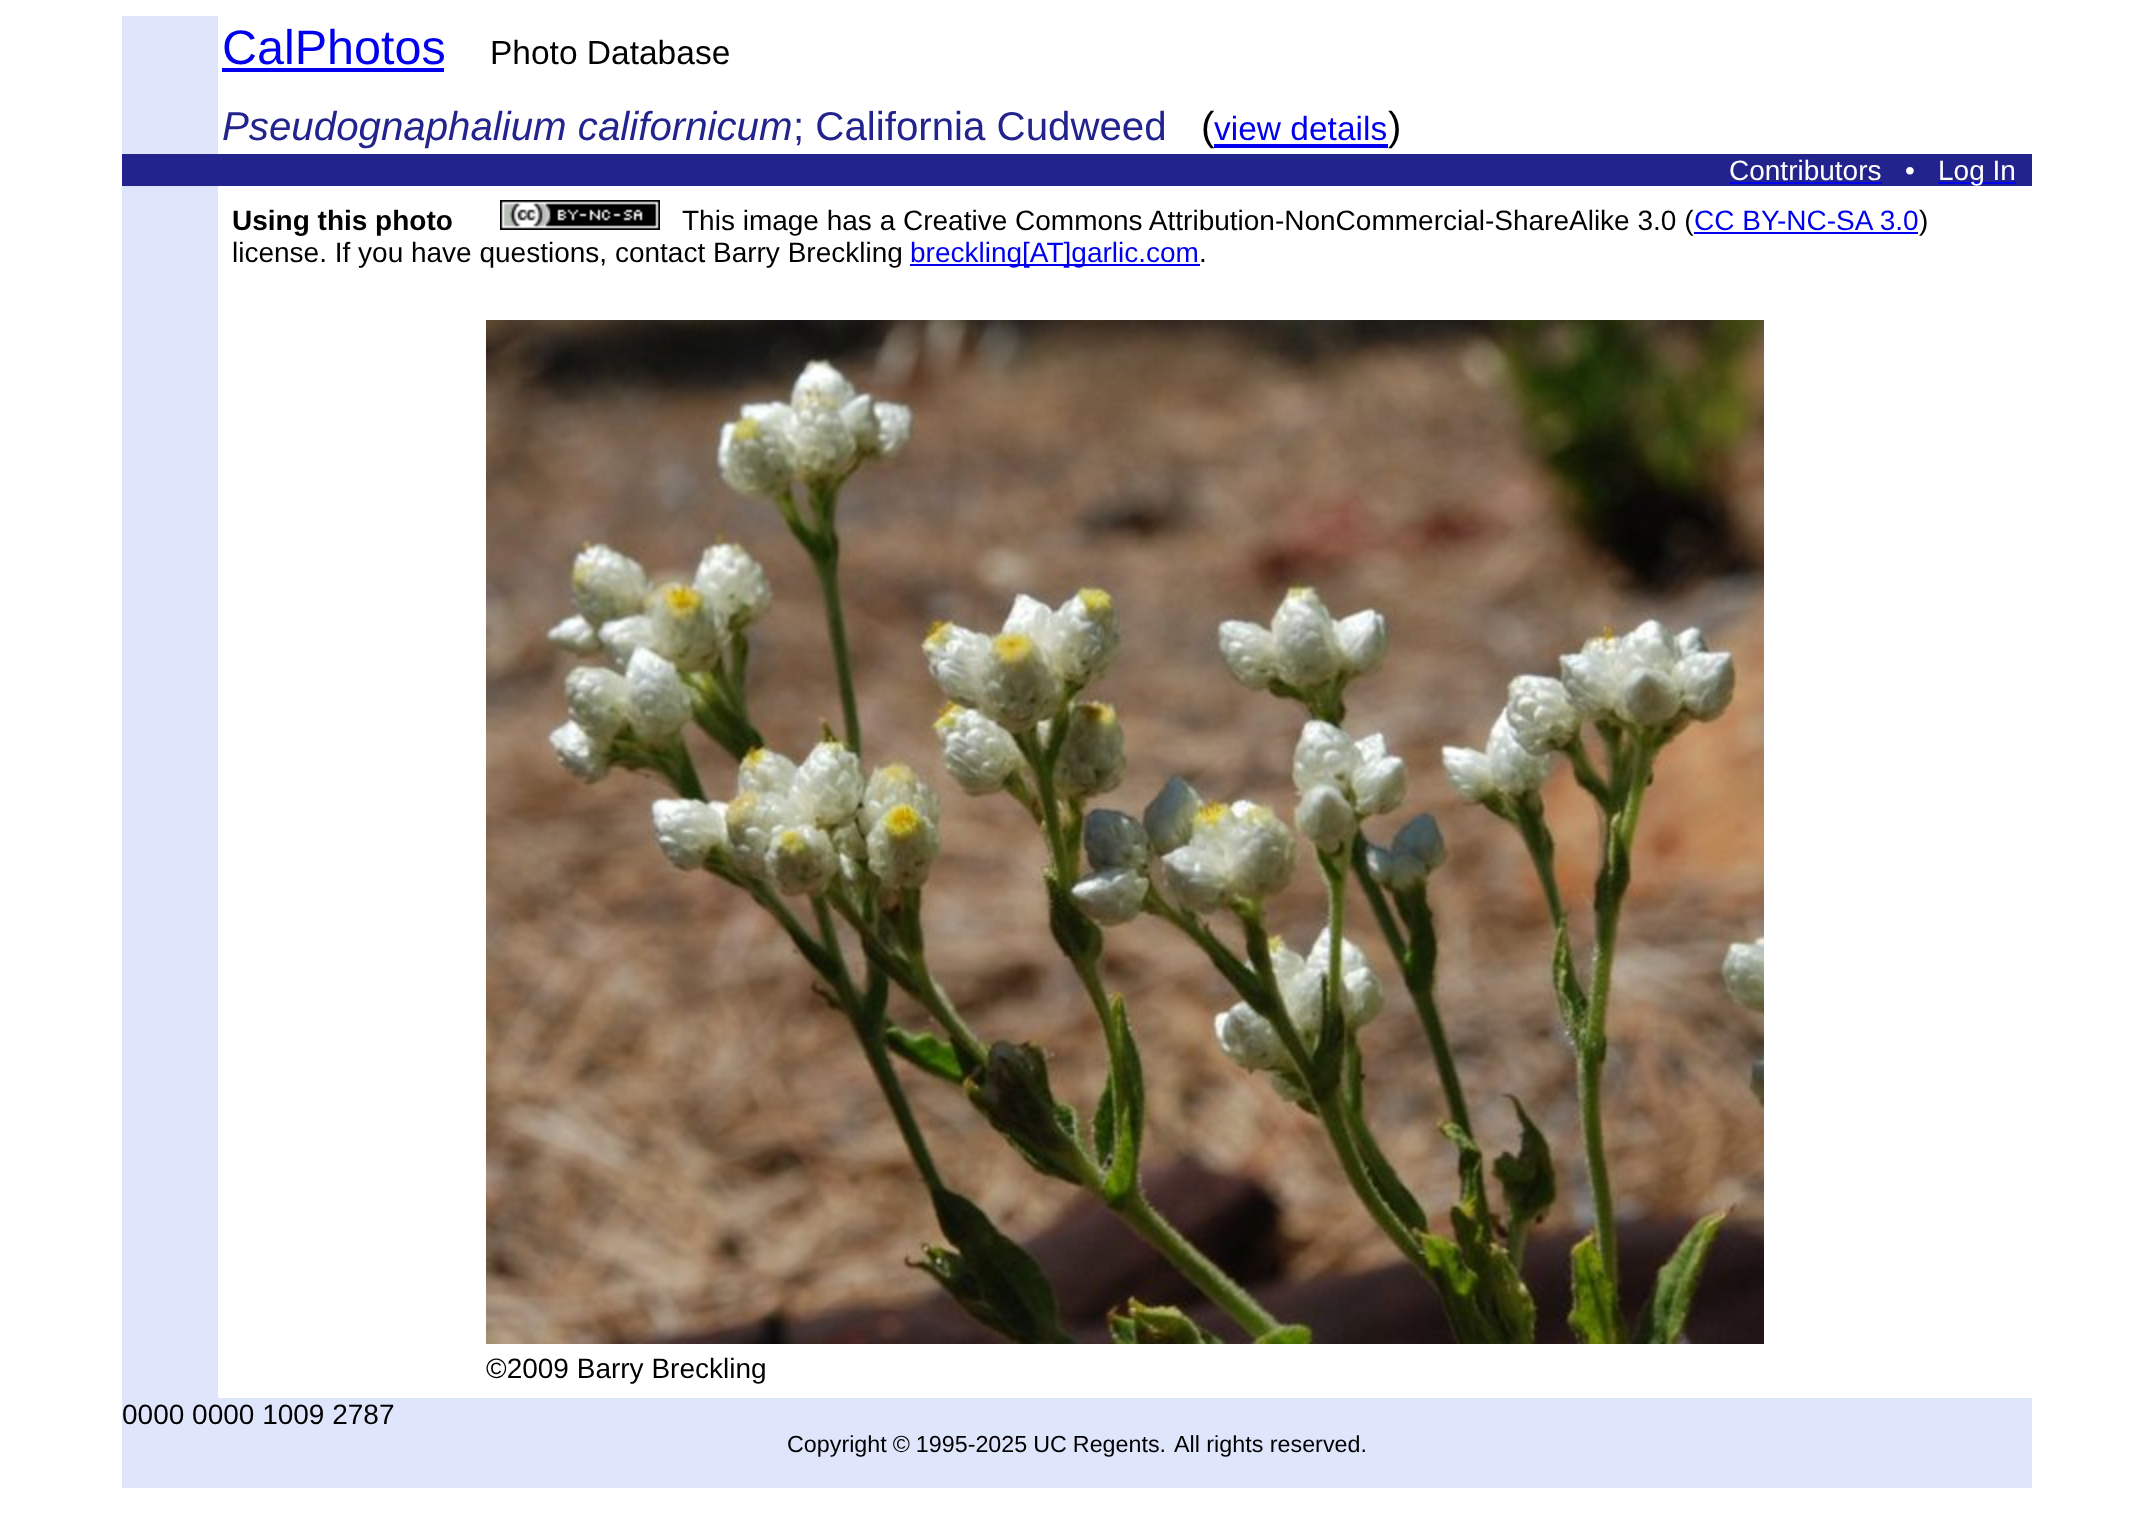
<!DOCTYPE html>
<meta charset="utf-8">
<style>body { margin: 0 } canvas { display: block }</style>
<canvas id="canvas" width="2154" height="1518"></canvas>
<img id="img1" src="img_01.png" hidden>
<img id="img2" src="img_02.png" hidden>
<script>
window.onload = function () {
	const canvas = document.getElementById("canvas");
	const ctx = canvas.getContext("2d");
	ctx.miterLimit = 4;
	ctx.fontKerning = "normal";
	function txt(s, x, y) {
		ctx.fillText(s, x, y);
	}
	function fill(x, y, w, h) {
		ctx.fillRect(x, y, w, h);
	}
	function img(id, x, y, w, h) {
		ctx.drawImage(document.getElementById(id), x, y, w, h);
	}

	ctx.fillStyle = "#FFFFFF";
	fill(0, 0, 2154, 1518);
	ctx.fillStyle = "#DFE5FA";
	fill(122, 16, 96, 138);
	ctx.fillStyle = "#0000EE";
	fill(222, 68, 222, 4);
	fill(1214, 144, 174, 4);
	ctx.fillStyle = "#23238E";
	fill(122, 154, 1910, 32);
	ctx.fillStyle = "#0000EE";
	fill(1730, 182, 152, 2);
	fill(1938, 182, 78, 2);
	ctx.fillStyle = "#DFE5FA";
	fill(122, 186, 96, 1212);
	img("img1", 500, 200, 160, 30);
	ctx.fillStyle = "#0000EE";
	fill(1694, 232, 224, 2);
	fill(910, 264, 290, 2);
	img("img2", 486, 320, 1278, 1024);
	ctx.fillStyle = "#DFE5FA";
	fill(122, 1398, 1910, 90);
	ctx.font = "48.5px Liberation Sans";
	ctx.fillStyle = "#0000EE";
	txt("CalPhotos", 222, 64);
	ctx.font = "33.5px Liberation Sans";
	ctx.fillStyle = "#000000";
	txt("Photo Database", 490, 64);
	ctx.font = "italic 40.25px Liberation Sans";
	ctx.fillStyle = "#23238E";
	txt("Pseudognaphalium californicum", 222, 140);
	ctx.font = "40.25px Liberation Sans";
	txt("; California Cudweed", 793, 140);
	ctx.fillStyle = "#000000";
	txt("(", 1201, 140);
	ctx.font = "33.5px Liberation Sans";
	ctx.fillStyle = "#0000EE";
	txt("view details", 1214, 140);
	ctx.font = "40.25px Liberation Sans";
	ctx.fillStyle = "#000000";
	txt(")", 1388, 140);
	ctx.font = "28px Liberation Sans";
	ctx.fillStyle = "#FFFFFF";
	txt("Contributors", 1729, 180);
	txt("•", 1905, 180);
	txt("Log In", 1938, 180);
	ctx.font = "bold 28px Liberation Sans";
	ctx.fillStyle = "#000000";
	txt("Using this photo", 232, 230);
	ctx.font = "28px Liberation Sans";
	txt("This image has a Creative Commons Attribution-NonCommercial-ShareAlike 3.0 (", 682, 230);
	ctx.fillStyle = "#0000EE";
	txt("CC BY-NC-SA 3.0", 1694, 230);
	ctx.fillStyle = "#000000";
	txt(")", 1919, 230);
	txt("license. If you have questions, contact Barry Breckling", 232, 262);
	ctx.fillStyle = "#0000EE";
	txt("breckling[AT]garlic.com", 910, 262);
	ctx.fillStyle = "#000000";
	txt(".", 1199, 262);
	txt("©2009 Barry Breckling", 486, 1378);
	txt("0000 0000 1009 2787", 122, 1424);
	ctx.wordSpacing = "-0.5px";
	ctx.font = "23.3px Liberation Sans";
	txt("Copyright © 1995-2025 UC Regents.", 787, 1452);
	ctx.wordSpacing = "0px";
	txt("All rights reserved.", 1174, 1452);
};
</script>
